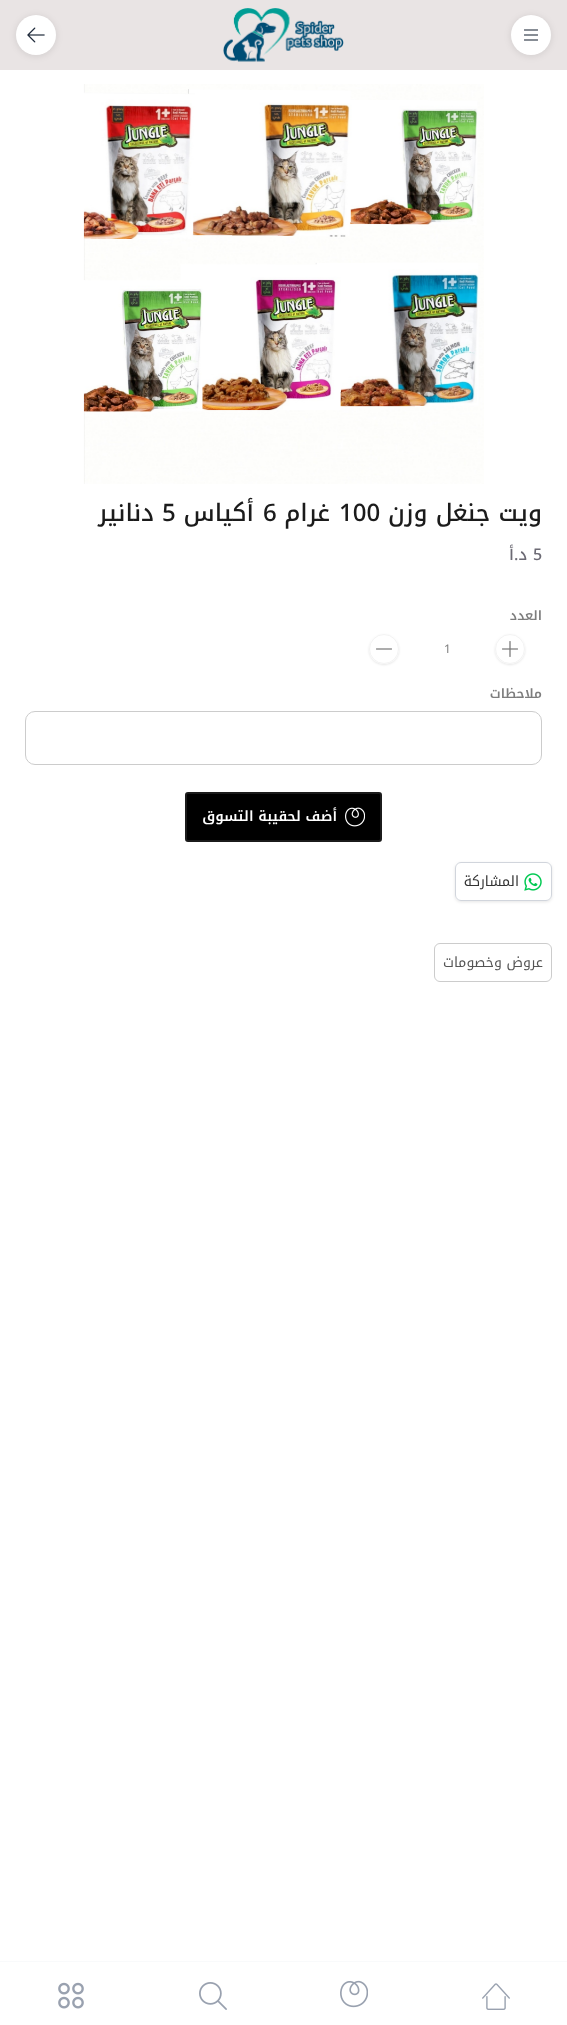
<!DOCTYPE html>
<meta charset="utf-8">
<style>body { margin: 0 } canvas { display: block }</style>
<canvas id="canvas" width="567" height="2025"></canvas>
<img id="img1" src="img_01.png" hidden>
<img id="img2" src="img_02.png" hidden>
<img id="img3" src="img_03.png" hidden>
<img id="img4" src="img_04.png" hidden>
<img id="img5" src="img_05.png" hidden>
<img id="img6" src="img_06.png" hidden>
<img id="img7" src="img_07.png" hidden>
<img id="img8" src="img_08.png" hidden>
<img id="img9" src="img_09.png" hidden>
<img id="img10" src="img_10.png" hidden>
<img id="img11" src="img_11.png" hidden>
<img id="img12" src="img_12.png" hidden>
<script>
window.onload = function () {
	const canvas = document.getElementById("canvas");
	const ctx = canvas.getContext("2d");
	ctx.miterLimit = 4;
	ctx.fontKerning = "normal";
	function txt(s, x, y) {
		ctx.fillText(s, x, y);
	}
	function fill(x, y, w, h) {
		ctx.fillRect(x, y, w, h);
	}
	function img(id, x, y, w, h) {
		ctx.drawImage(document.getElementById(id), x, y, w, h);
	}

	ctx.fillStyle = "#FFFFFF";
	fill(0, 0, 567, 2025);
	ctx.fillStyle = "#E9E4E4";
	fill(0, 0, 567, 70);
	ctx.fillStyle = "rgba(0, 0, 0, 0.1)";
	ctx.filter = "blur(3.5px)";
	ctx.beginPath();
	ctx.roundRect(511, 16, 40, 40, 20);
	ctx.fill();
	ctx.filter = "none";
	ctx.fillStyle = "#FFFFFF";
	ctx.beginPath();
	ctx.arc(531, 35, 20, 0, Math.PI * 2);
	ctx.fill();
	img("img1", 524, 29, 14, 12);
	img("img2", 223, 8, 121, 54);
	ctx.fillStyle = "rgba(0, 0, 0, 0.1)";
	ctx.filter = "blur(3.5px)";
	ctx.beginPath();
	ctx.roundRect(16, 16, 40, 40, 20);
	ctx.fill();
	ctx.filter = "none";
	ctx.fillStyle = "#FFFFFF";
	ctx.beginPath();
	ctx.arc(36, 35, 20, 0, Math.PI * 2);
	ctx.fill();
	img("img3", 27, 27, 18, 16);
	img("img4", 83, 84, 401, 400);
	ctx.save();
	ctx.beginPath();
	ctx.moveTo(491, 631);
	ctx.lineTo(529, 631);
	ctx.lineTo(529, 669);
	ctx.lineTo(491, 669);
	ctx.closePath();
	ctx.moveTo(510, 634);
	ctx.bezierCurveTo(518.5, 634, 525, 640.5, 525, 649);
	ctx.bezierCurveTo(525, 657.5, 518.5, 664, 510, 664);
	ctx.bezierCurveTo(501.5, 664, 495, 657.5, 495, 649);
	ctx.bezierCurveTo(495, 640.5, 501.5, 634, 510, 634);
	ctx.closePath();
	ctx.clip("evenodd");
	ctx.fillStyle = "rgba(0, 0, 0, 0.1)";
	ctx.filter = "blur(1px)";
	ctx.beginPath();
	ctx.roundRect(495, 635, 30, 30, 15);
	ctx.fill();
	ctx.filter = "none";
	ctx.restore();
	ctx.beginPath();
	ctx.arc(510, 649, 14.5, 0, Math.PI * 2);
	ctx.strokeStyle = "#F3F3F3";
	ctx.stroke();
	img("img5", 502, 641, 16, 16);
	ctx.save();
	ctx.beginPath();
	ctx.moveTo(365, 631);
	ctx.lineTo(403, 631);
	ctx.lineTo(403, 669);
	ctx.lineTo(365, 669);
	ctx.closePath();
	ctx.moveTo(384, 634);
	ctx.bezierCurveTo(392.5, 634, 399, 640.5, 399, 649);
	ctx.bezierCurveTo(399, 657.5, 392.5, 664, 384, 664);
	ctx.bezierCurveTo(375.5, 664, 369, 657.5, 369, 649);
	ctx.bezierCurveTo(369, 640.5, 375.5, 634, 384, 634);
	ctx.closePath();
	ctx.clip("evenodd");
	ctx.fillStyle = "rgba(0, 0, 0, 0.1)";
	ctx.filter = "blur(1px)";
	ctx.beginPath();
	ctx.roundRect(369, 635, 30, 30, 15);
	ctx.fill();
	ctx.filter = "none";
	ctx.restore();
	ctx.beginPath();
	ctx.arc(384, 649, 14.5, 0, Math.PI * 2);
	ctx.stroke();
	img("img6", 376, 648, 16, 2);
	ctx.beginPath();
	ctx.roundRect(25.5, 711.5, 516, 53, 9.5);
	ctx.strokeStyle = "#CCCCCC";
	ctx.stroke();
	ctx.fillStyle = "#000000";
	ctx.beginPath();
	ctx.roundRect(186, 793, 195, 48, 2);
	ctx.fill();
	ctx.strokeStyle = "#1B1B1B";
	ctx.lineWidth = 2;
	ctx.stroke();
	img("img7", 345, 807, 20, 20);
	ctx.save();
	ctx.beginPath();
	ctx.moveTo(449, 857);
	ctx.lineTo(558, 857);
	ctx.lineTo(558, 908);
	ctx.lineTo(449, 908);
	ctx.closePath();
	ctx.moveTo(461, 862);
	ctx.lineTo(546, 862);
	ctx.bezierCurveTo(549.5, 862, 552, 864.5, 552, 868);
	ctx.lineTo(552, 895);
	ctx.bezierCurveTo(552, 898.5, 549.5, 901, 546, 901);
	ctx.lineTo(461, 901);
	ctx.bezierCurveTo(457.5, 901, 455, 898.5, 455, 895);
	ctx.lineTo(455, 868);
	ctx.bezierCurveTo(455, 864.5, 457.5, 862, 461, 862);
	ctx.closePath();
	ctx.clip("evenodd");
	ctx.fillStyle = "rgba(0, 0, 0, 0.1)";
	ctx.filter = "blur(1.5px)";
	ctx.beginPath();
	ctx.roundRect(455, 863, 97, 39, 6);
	ctx.fill();
	ctx.filter = "none";
	ctx.restore();
	ctx.beginPath();
	ctx.roundRect(455.5, 862.5, 96, 38, 5.5);
	ctx.strokeStyle = "#D1D5DC";
	ctx.lineWidth = 1;
	ctx.stroke();
	img("img8", 524, 873, 18, 18);
	ctx.beginPath();
	ctx.roundRect(434.5, 943.5, 117, 38, 5.5);
	ctx.strokeStyle = "#CCCCCC";
	ctx.stroke();
	ctx.fillStyle = "#F9FAFB";
	fill(0, 1961, 567, 1);
	img("img9", 482, 1983, 28, 27);
	img("img10", 340, 1980, 28, 28);
	img("img11", 199, 1982, 28, 28);
	img("img12", 58, 1982, 26, 27);
	ctx.direction = "rtl";
	ctx.font = "500 24px Noto Kufi Arabic";
	ctx.fillStyle = "#1B1B1B";
	txt("ويت جنغل وزن", 542, 521);
	ctx.direction = "ltr";
	txt("100", 339, 521);
	ctx.direction = "rtl";
	txt("غرام", 330, 521);
	ctx.direction = "ltr";
	txt("6", 263, 521);
	ctx.direction = "rtl";
	txt("أكياس", 254, 521);
	ctx.direction = "ltr";
	txt("5", 162, 521);
	ctx.direction = "rtl";
	txt("دنانير", 154, 521);
	ctx.direction = "ltr";
	ctx.font = "500 16px Noto Kufi Arabic";
	ctx.fillStyle = "#6C6A74";
	txt("5", 533, 560);
	ctx.direction = "rtl";
	txt("د.أ", 527, 560);
	ctx.font = "600 13px Noto Kufi Arabic";
	ctx.fillStyle = "#7D7D7D";
	txt("العدد", 542, 620);
	ctx.direction = "ltr";
	ctx.font = "12px Noto Kufi Arabic";
	txt("1", 444, 653);
	ctx.direction = "rtl";
	ctx.font = "600 13px Noto Kufi Arabic";
	txt("ملاحظات", 542, 698);
	ctx.font = "600 14px Noto Kufi Arabic";
	ctx.fillStyle = "#FFFFFF";
	txt("أضف لحقيبة التسوق", 337, 821);
	ctx.font = "14px Noto Kufi Arabic";
	ctx.fillStyle = "#333333";
	txt("المشاركة", 519, 886);
	ctx.fillStyle = "#555555";
	txt("عروض وخصومات", 543, 967);
};
</script>
